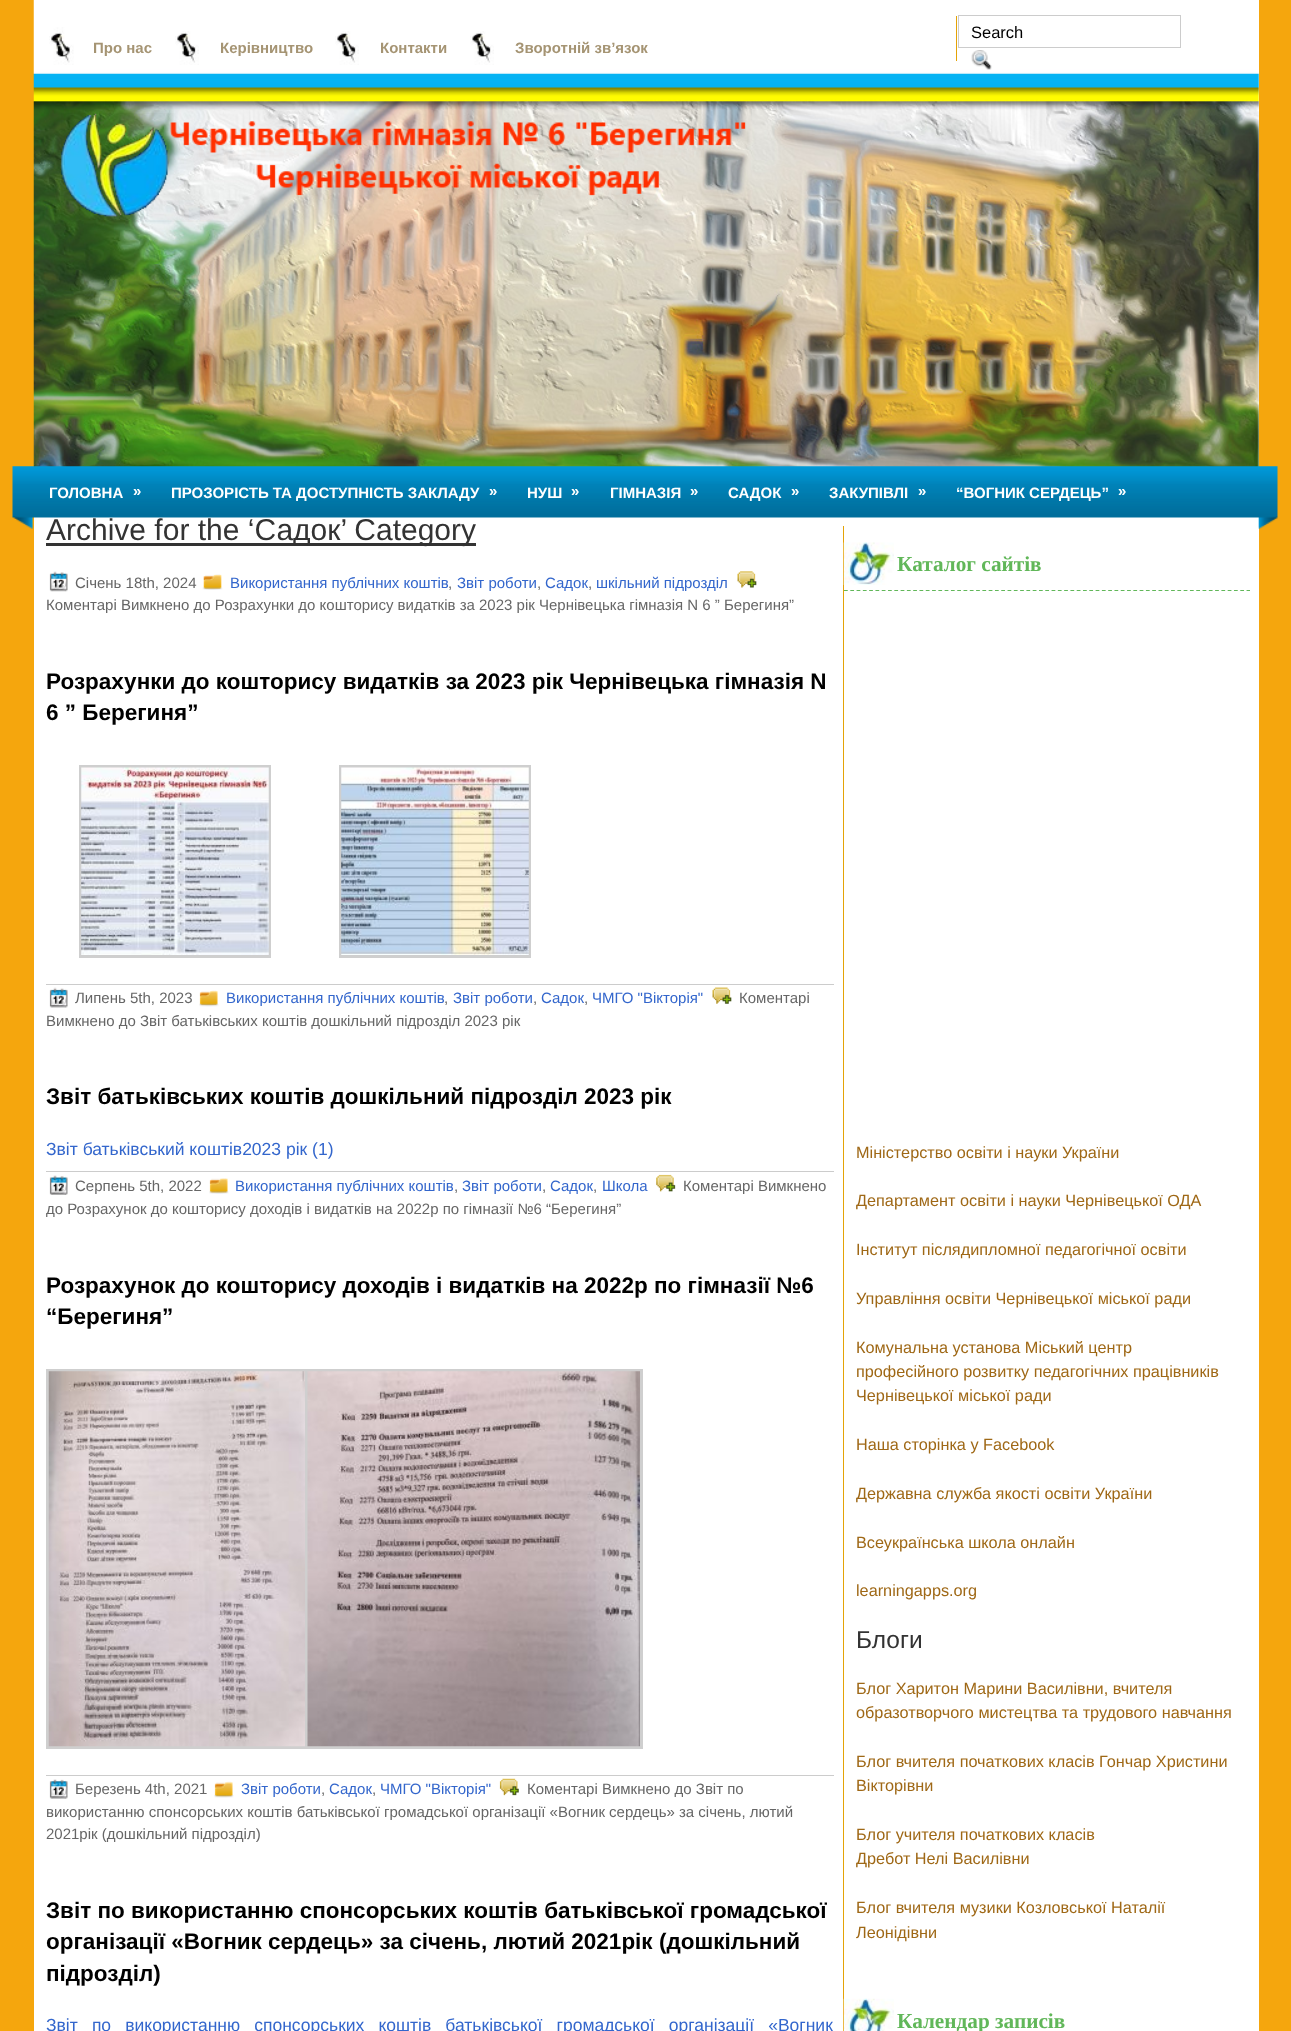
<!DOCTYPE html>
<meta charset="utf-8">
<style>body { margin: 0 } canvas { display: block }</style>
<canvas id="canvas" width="1291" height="2031"></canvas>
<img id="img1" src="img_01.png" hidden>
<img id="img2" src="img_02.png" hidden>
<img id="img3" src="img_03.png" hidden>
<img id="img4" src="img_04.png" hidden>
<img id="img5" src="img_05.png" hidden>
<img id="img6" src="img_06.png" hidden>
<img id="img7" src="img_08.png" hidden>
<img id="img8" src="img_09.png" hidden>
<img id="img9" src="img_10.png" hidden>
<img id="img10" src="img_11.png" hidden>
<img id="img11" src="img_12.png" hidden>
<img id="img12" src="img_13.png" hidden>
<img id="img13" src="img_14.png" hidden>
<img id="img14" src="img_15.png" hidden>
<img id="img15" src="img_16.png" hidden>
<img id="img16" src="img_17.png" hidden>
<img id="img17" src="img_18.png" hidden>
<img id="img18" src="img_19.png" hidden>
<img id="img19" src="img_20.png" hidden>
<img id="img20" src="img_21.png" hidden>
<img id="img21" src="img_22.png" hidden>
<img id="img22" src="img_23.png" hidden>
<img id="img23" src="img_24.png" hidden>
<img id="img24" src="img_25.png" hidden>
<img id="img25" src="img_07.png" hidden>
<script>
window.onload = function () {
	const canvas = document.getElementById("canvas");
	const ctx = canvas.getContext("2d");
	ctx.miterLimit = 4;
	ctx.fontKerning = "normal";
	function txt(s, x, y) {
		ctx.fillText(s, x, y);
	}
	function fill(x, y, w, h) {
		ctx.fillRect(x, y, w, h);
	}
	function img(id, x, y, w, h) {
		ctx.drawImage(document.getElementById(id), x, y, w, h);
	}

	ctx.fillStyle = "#F5A60D";
	fill(0, 0, 1291, 2031);
	ctx.fillStyle = "#FFFFFF";
	fill(34, 0, 1225, 2031);
	img("img1", 33, 0, 1226, 467);
	ctx.fillStyle = "#E4A307";
	fill(956, 16, 1, 45);
	ctx.strokeStyle = "#CCCCCC";
	ctx.strokeRect(958.5, 15.5, 222, 32);
	img("img2", 971, 50, 21, 20);
	img("img3", 49, 27, 25, 38);
	img("img4", 175, 31, 24, 34);
	img("img4", 335, 31, 24, 34);
	img("img5", 470, 31, 24, 34);
	img("img6", 61, 113, 685, 109);
	ctx.fillStyle = "#333333";
	fill(46, 543, 430, 3);
	img("img7", 49, 571, 19, 21);
	img("img8", 202, 574, 21, 16);
	img("img9", 737, 571, 20, 17);
	ctx.fillStyle = "#CCCCCC";
	fill(46, 984, 788, 1);
	ctx.strokeStyle = "#CFCFCF";
	ctx.lineWidth = 3;
	ctx.strokeRect(80.5, 766.5, 189, 190);
	img("img10", 81, 767, 188, 188);
	ctx.strokeRect(340.5, 766.5, 189, 190);
	img("img11", 341, 767, 188, 188);
	img("img12", 49, 987, 19, 21);
	img("img13", 199, 990, 20, 17);
	img("img14", 712, 987, 20, 17);
	fill(46, 1171, 788, 1);
	img("img15", 49, 1175, 19, 20);
	img("img16", 209, 1178, 20, 16);
	img("img17", 656, 1174, 20, 18);
	fill(46, 1775, 788, 1);
	ctx.strokeRect(47.5, 1370.5, 260, 377);
	img("img18", 48, 1371, 257, 376);
	ctx.strokeRect(306.5, 1370.5, 335, 377);
	img("img19", 307, 1371, 333, 376);
	img("img20", 49, 1779, 19, 20);
	img("img21", 214, 1781, 20, 17);
	img("img22", 499, 1778, 20, 18);
	ctx.fillStyle = "#E4A307";
	fill(843, 526, 1, 1505);
	img("img23", 843, 542, 51, 43);
	ctx.beginPath();
	ctx.moveTo(844, 590.5);
	ctx.lineTo(1250, 590.5);
	ctx.strokeStyle = "#61B759";
	ctx.lineWidth = 1.2;
	ctx.setLineDash([3.75, 2.54]);
	ctx.stroke();
	img("img24", 843, 1998, 51, 33);
	ctx.font = "16.5px Liberation Sans";
	ctx.fillStyle = "#000000";
	txt("Search", 971, 38);
	ctx.font = "bold 15px Liberation Sans";
	ctx.fillStyle = "#A59473";
	txt("Про нас", 93, 53);
	txt("Керівництво", 220, 53);
	txt("Контакти", 380, 53);
	txt("Зворотній зв’язок", 515, 53);
	ctx.font = "30px Liberation Sans";
	ctx.fillStyle = "#333333";
	txt("Archive for the ‘Садок’ Category", 46, 540);
	img("img25", 12, 466, 1266, 63);
	ctx.font = "bold 15px Liberation Sans";
	ctx.fillStyle = "#FFFFFF";
	txt("»", 1118, 496);
	txt("“ВОГНИК СЕРДЕЦЬ”", 956, 498);
	txt("»", 918, 496);
	txt("ЗАКУПІВЛІ", 829, 498);
	txt("»", 791, 496);
	txt("САДОК", 728, 498);
	txt("»", 690, 496);
	txt("ГІМНАЗІЯ", 610, 498);
	txt("»", 571, 496);
	txt("НУШ", 527, 498);
	txt("»", 489, 496);
	txt("ПРОЗОРІСТЬ ТА ДОСТУПНІСТЬ ЗАКЛАДУ", 171, 498);
	txt("»", 133, 496);
	txt("ГОЛОВНА", 49, 498);
	ctx.font = "15px Liberation Sans";
	ctx.fillStyle = "#666666";
	txt("Січень 18th, 2024", 75, 588);
	ctx.fillStyle = "#3366CC";
	txt("Використання публічних коштів", 230, 588);
	ctx.fillStyle = "#666666";
	txt(",", 448, 588);
	ctx.fillStyle = "#3366CC";
	txt("Звіт роботи", 457, 588);
	ctx.fillStyle = "#666666";
	txt(",", 537, 588);
	ctx.fillStyle = "#3366CC";
	txt("Садок", 545, 588);
	ctx.fillStyle = "#666666";
	txt(",", 588, 588);
	ctx.fillStyle = "#3366CC";
	txt("шкільний підрозділ", 596, 588);
	ctx.fillStyle = "#666666";
	txt("Коментарі Вимкнено до Розрахунки до кошторису видатків за 2023 рік Чернівецька гімназія N 6 ” Берегиня”", 46, 610);
	ctx.font = "bold 22.5px Liberation Sans";
	ctx.fillStyle = "#000000";
	txt("Розрахунки до кошторису видатків за 2023 рік Чернівецька гімназія N", 46, 689);
	txt("6 ” Берегиня”", 46, 720);
	ctx.font = "15px Liberation Sans";
	ctx.fillStyle = "#666666";
	txt("Липень 5th, 2023", 75, 1003);
	ctx.fillStyle = "#3366CC";
	txt("Використання публічних коштів", 226, 1003);
	ctx.fillStyle = "#666666";
	txt(",", 444, 1003);
	ctx.fillStyle = "#3366CC";
	txt("Звіт роботи", 453, 1003);
	ctx.fillStyle = "#666666";
	txt(",", 533, 1003);
	ctx.fillStyle = "#3366CC";
	txt("Садок", 541, 1003);
	ctx.fillStyle = "#666666";
	txt(",", 584, 1003);
	ctx.fillStyle = "#3366CC";
	txt("ЧМГО \"Вікторія\"", 592, 1003);
	ctx.fillStyle = "#666666";
	txt("Коментарі", 739, 1003);
	txt("Вимкнено до Звіт батьківських коштів дошкільний підрозділ 2023 рік", 46, 1026);
	ctx.font = "bold 22.5px Liberation Sans";
	ctx.fillStyle = "#000000";
	txt("Звіт батьківських коштів дошкільний підрозділ 2023 рік", 46, 1104);
	ctx.font = "17.5px Liberation Sans";
	ctx.fillStyle = "#3366CC";
	txt("Звіт батьківський коштів2023 рік (1)", 46, 1155);
	ctx.font = "15px Liberation Sans";
	ctx.fillStyle = "#666666";
	txt("Серпень 5th, 2022", 75, 1191);
	ctx.fillStyle = "#3366CC";
	txt("Використання публічних коштів", 235, 1191);
	ctx.fillStyle = "#666666";
	txt(",", 454, 1191);
	ctx.fillStyle = "#3366CC";
	txt("Звіт роботи", 462, 1191);
	ctx.fillStyle = "#666666";
	txt(",", 542, 1191);
	ctx.fillStyle = "#3366CC";
	txt("Садок", 550, 1191);
	ctx.fillStyle = "#666666";
	txt(",", 593, 1191);
	ctx.fillStyle = "#3366CC";
	txt("Школа", 602, 1191);
	ctx.fillStyle = "#666666";
	txt("Коментарі Вимкнено", 683, 1191);
	txt("до Розрахунок до кошторису доходів і видатків на 2022р по гімназії №6 “Берегиня”", 46, 1214);
	ctx.font = "bold 22.5px Liberation Sans";
	ctx.fillStyle = "#000000";
	txt("Розрахунок до кошторису доходів і видатків на 2022р по гімназії №6", 46, 1293);
	txt("“Берегиня”", 46, 1324);
	ctx.font = "15px Liberation Sans";
	ctx.fillStyle = "#666666";
	txt("Березень 4th, 2021", 75, 1794);
	ctx.fillStyle = "#3366CC";
	txt("Звіт роботи", 241, 1794);
	ctx.fillStyle = "#666666";
	txt(",", 321, 1794);
	ctx.fillStyle = "#3366CC";
	txt("Садок", 329, 1794);
	ctx.fillStyle = "#666666";
	txt(",", 372, 1794);
	ctx.fillStyle = "#3366CC";
	txt("ЧМГО \"Вікторія\"", 380, 1794);
	ctx.fillStyle = "#666666";
	txt("Коментарі Вимкнено до Звіт по", 527, 1794);
	txt("використанню спонсорських коштів батьківської громадської організації «Вогник сердець» за січень, лютий", 46, 1817);
	txt("2021рік (дошкільний підрозділ)", 46, 1839);
	ctx.font = "bold 22.5px Liberation Sans";
	ctx.fillStyle = "#000000";
	txt("Звіт по використанню спонсорських коштів батьківської громадської", 46, 1918);
	txt("організації «Вогник сердець» за січень, лютий 2021рік (дошкільний", 46, 1949);
	txt("підрозділ)", 46, 1981);
	ctx.wordSpacing = "9.25px";
	ctx.font = "17.5px Liberation Sans";
	ctx.fillStyle = "#3366CC";
	txt("Звіт по використанню спонсорських коштів батьківської громадської організації «Вогник", 46, 2031);
	ctx.wordSpacing = "0px";
	ctx.font = "bold 21.25px Liberation Serif";
	ctx.fillStyle = "#61B759";
	txt("Каталог сайтів", 897, 571);
	ctx.font = "16.25px Liberation Sans";
	ctx.fillStyle = "#9F6816";
	txt("Міністерство освіти і науки України", 856, 1158);
	txt("Департамент освіти і науки Чернівецької ОДА", 856, 1206);
	txt("Інститут післядипломної педагогічної освіти", 856, 1255);
	txt("Управління освіти Чернівецької міської ради", 856, 1304);
	txt("Комунальна установа Міський центр", 856, 1353);
	txt("професійного розвитку педагогічних працівників", 856, 1377);
	txt("Чернівецької міської ради", 856, 1401);
	txt("Наша сторінка у Facebook", 856, 1450);
	txt("Державна служба якості освіти України", 856, 1499);
	txt("Всеукраїнська школа онлайн", 856, 1548);
	txt("learningapps.org", 856, 1596);
	ctx.font = "24.5px Liberation Sans";
	ctx.fillStyle = "#333333";
	txt("Блоги", 856, 1648);
	ctx.font = "16.25px Liberation Sans";
	ctx.fillStyle = "#9F6816";
	txt("Блог Харитон Марини Василівни, вчителя", 856, 1694);
	txt("образотворчого мистецтва та трудового навчання", 856, 1718);
	txt("Блог вчителя початкових класів Гончар Христини", 856, 1767);
	txt("Вікторівни", 856, 1791);
	txt("Блог учителя початкових класів", 856, 1840);
	txt("Дребот Нелі Василівни", 856, 1864);
	txt("Блог вчителя музики Козловської Наталії", 856, 1913);
	txt("Леонідівни", 856, 1938);
	ctx.font = "bold 21.25px Liberation Serif";
	ctx.fillStyle = "#61B759";
	txt("Календар записів", 897, 2028);
};
</script>
